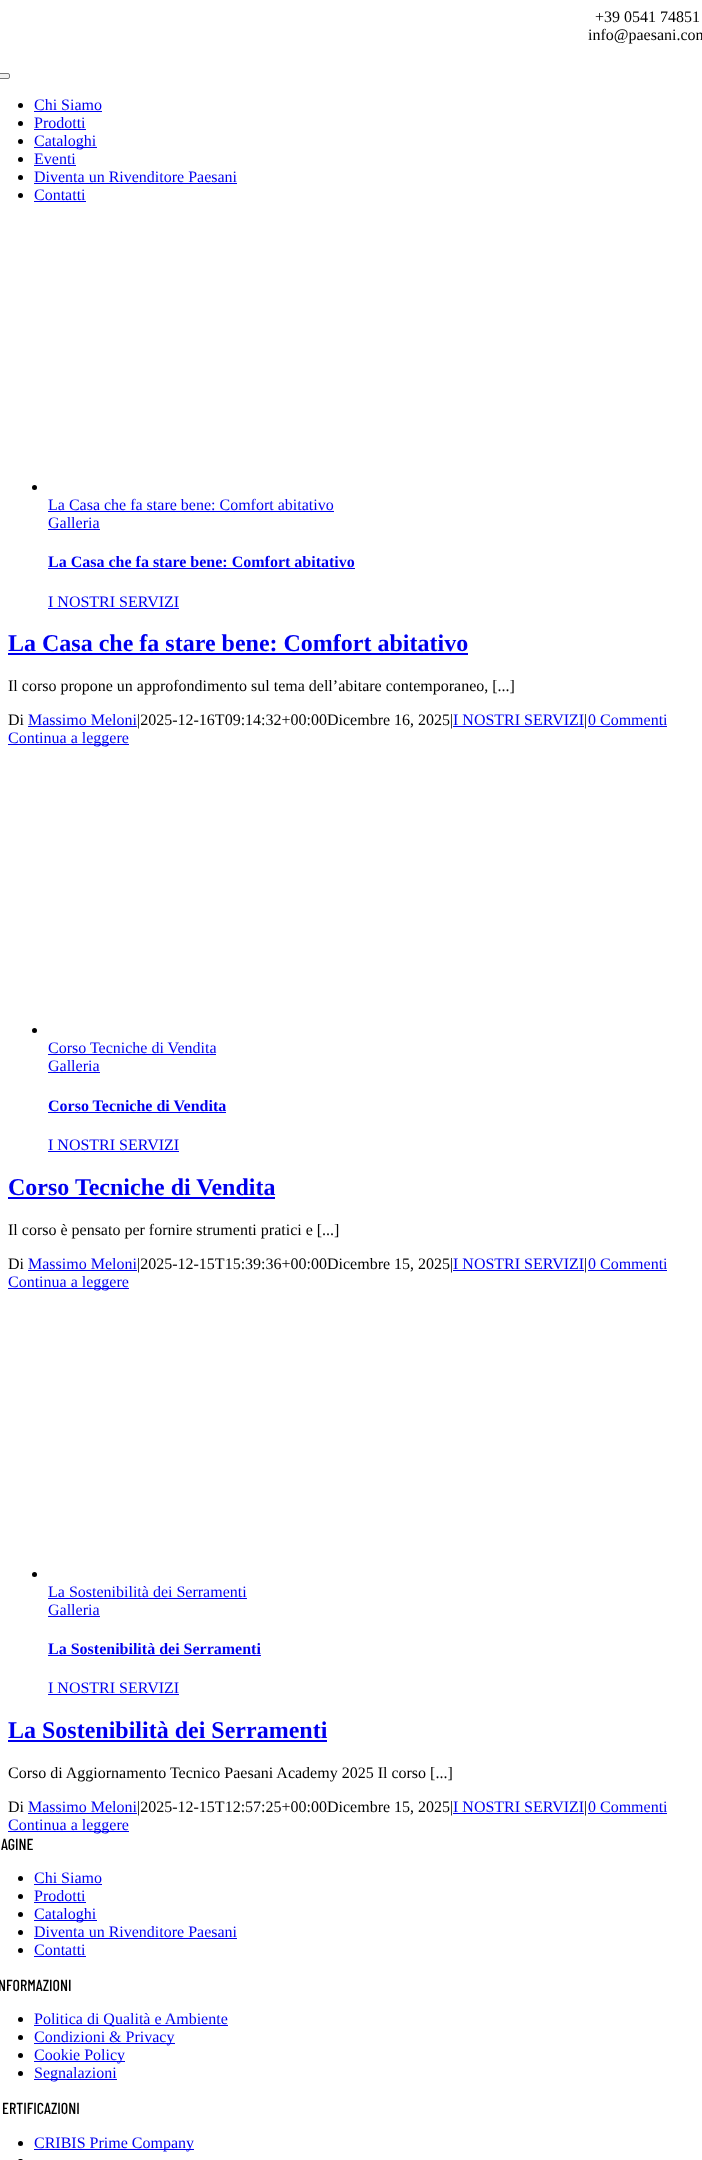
<!DOCTYPE html>
<meta charset="utf-8">
<style>body { margin: 0 } canvas { display: block }</style>
<canvas id="canvas" width="702" height="2160"></canvas>
<script>
window.onload = function () {
	const canvas = document.getElementById("canvas");
	const ctx = canvas.getContext("2d");
	ctx.miterLimit = 4;
	ctx.fontKerning = "normal";
	function txt(s, x, y) {
		ctx.fillText(s, x, y);
	}
	function fill(x, y, w, h) {
		ctx.fillRect(x, y, w, h);
	}
	function round(x, y, w, h, r) {
		ctx.beginPath();
		ctx.roundRect(x, y, w, h, r);
		ctx.fill();
	}

	ctx.fillStyle = "#FFFFFF";
	fill(0, 0, 702, 2160);
	ctx.fillStyle = "#EFEFEF";
	ctx.beginPath();
	ctx.roundRect(-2.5, 73.5, 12, 5, 1.5);
	ctx.fill();
	ctx.strokeStyle = "#767676";
	ctx.stroke();
	ctx.fillStyle = "#000000";
	ctx.beginPath();
	ctx.arc(20.5, 105.5, 2.5, 0, Math.PI * 2);
	ctx.fill();
	ctx.fillStyle = "#0000EE";
	fill(34, 111, 68, 1);
	ctx.fillStyle = "#000000";
	ctx.beginPath();
	ctx.arc(20.5, 123.5, 2.5, 0, Math.PI * 2);
	ctx.fill();
	ctx.fillStyle = "#0000EE";
	fill(34, 129, 52, 1);
	ctx.fillStyle = "#000000";
	ctx.beginPath();
	ctx.arc(20.5, 141.5, 2.5, 0, Math.PI * 2);
	ctx.fill();
	ctx.fillStyle = "#0000EE";
	fill(34, 147, 63, 1);
	ctx.fillStyle = "#000000";
	ctx.beginPath();
	ctx.arc(20.5, 159.5, 2.5, 0, Math.PI * 2);
	ctx.fill();
	ctx.fillStyle = "#0000EE";
	fill(34, 165, 42, 1);
	ctx.fillStyle = "#000000";
	ctx.beginPath();
	ctx.arc(20.5, 177.5, 2.5, 0, Math.PI * 2);
	ctx.fill();
	ctx.fillStyle = "#0000EE";
	fill(34, 183, 203, 1);
	ctx.fillStyle = "#000000";
	ctx.beginPath();
	ctx.arc(20.5, 195.5, 2.5, 0, Math.PI * 2);
	ctx.fill();
	ctx.fillStyle = "#0000EE";
	fill(34, 201, 52, 1);
	ctx.fillStyle = "#000000";
	ctx.beginPath();
	ctx.arc(34.5, 487.5, 2.5, 0, Math.PI * 2);
	ctx.fill();
	ctx.fillStyle = "#0000EE";
	fill(48, 511, 286, 1);
	fill(48, 529, 52, 1);
	fill(48, 568, 307, 1);
	fill(48, 608, 131, 1);
	fill(8, 653, 460, 2);
	fill(28, 726, 109, 1);
	fill(453, 726, 131, 1);
	fill(588, 726, 79, 1);
	fill(8, 744, 121, 1);
	ctx.fillStyle = "#000000";
	ctx.beginPath();
	ctx.arc(34.5, 1030.5, 2.5, 0, Math.PI * 2);
	ctx.fill();
	ctx.fillStyle = "#0000EE";
	fill(48, 1054, 168, 1);
	fill(48, 1072, 52, 1);
	fill(48, 1112, 178, 1);
	fill(48, 1151, 131, 1);
	fill(8, 1197, 267, 2);
	fill(28, 1270, 109, 1);
	fill(453, 1270, 131, 1);
	fill(588, 1270, 79, 1);
	fill(8, 1288, 121, 1);
	ctx.fillStyle = "#000000";
	ctx.beginPath();
	ctx.arc(34.5, 1574.5, 2.5, 0, Math.PI * 2);
	ctx.fill();
	ctx.fillStyle = "#0000EE";
	fill(48, 1598, 199, 1);
	fill(48, 1616, 52, 1);
	fill(48, 1655, 213, 1);
	fill(48, 1694, 131, 1);
	fill(8, 1740, 319, 2);
	fill(28, 1813, 109, 1);
	fill(453, 1813, 131, 1);
	fill(588, 1813, 79, 1);
	fill(8, 1831, 121, 1);
	ctx.fillStyle = "#000000";
	ctx.beginPath();
	ctx.arc(20.5, 1878.5, 2.5, 0, Math.PI * 2);
	ctx.fill();
	ctx.fillStyle = "#0000EE";
	fill(34, 1884, 68, 1);
	ctx.fillStyle = "#000000";
	ctx.beginPath();
	ctx.arc(20.5, 1896.5, 2.5, 0, Math.PI * 2);
	ctx.fill();
	ctx.fillStyle = "#0000EE";
	fill(34, 1902, 52, 1);
	ctx.fillStyle = "#000000";
	ctx.beginPath();
	ctx.arc(20.5, 1914.5, 2.5, 0, Math.PI * 2);
	ctx.fill();
	ctx.fillStyle = "#0000EE";
	fill(34, 1920, 63, 1);
	ctx.fillStyle = "#000000";
	ctx.beginPath();
	ctx.arc(20.5, 1932.5, 2.5, 0, Math.PI * 2);
	ctx.fill();
	ctx.fillStyle = "#0000EE";
	fill(34, 1938, 203, 1);
	ctx.fillStyle = "#000000";
	ctx.beginPath();
	ctx.arc(20.5, 1950.5, 2.5, 0, Math.PI * 2);
	ctx.fill();
	ctx.fillStyle = "#0000EE";
	fill(34, 1956, 52, 1);
	ctx.fillStyle = "#000000";
	ctx.beginPath();
	ctx.arc(20.5, 2019.5, 2.5, 0, Math.PI * 2);
	ctx.fill();
	ctx.fillStyle = "#0000EE";
	fill(34, 2025, 194, 1);
	ctx.fillStyle = "#000000";
	ctx.beginPath();
	ctx.arc(20.5, 2037.5, 2.5, 0, Math.PI * 2);
	ctx.fill();
	ctx.fillStyle = "#0000EE";
	fill(34, 2043, 141, 1);
	ctx.fillStyle = "#000000";
	ctx.beginPath();
	ctx.arc(20.5, 2055.5, 2.5, 0, Math.PI * 2);
	ctx.fill();
	ctx.fillStyle = "#0000EE";
	fill(34, 2061, 91, 1);
	ctx.fillStyle = "#000000";
	ctx.beginPath();
	ctx.arc(20.5, 2073.5, 2.5, 0, Math.PI * 2);
	ctx.fill();
	ctx.fillStyle = "#0000EE";
	fill(34, 2079, 83, 1);
	ctx.fillStyle = "#000000";
	ctx.beginPath();
	ctx.arc(20.5, 2143.5, 2.5, 0, Math.PI * 2);
	ctx.fill();
	ctx.fillStyle = "#0000EE";
	fill(34, 2149, 160, 1);
	ctx.fillStyle = "#000000";
	round(18, 2159, 5, 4, 2.5);
	ctx.font = "16px Liberation Serif";
	txt("+39 0541 74851", 595, 22);
	txt("info@paesani.com", 588, 40);
	ctx.fillStyle = "#0000EE";
	txt("Chi Siamo", 34, 110);
	txt("Prodotti", 34, 128);
	txt("Cataloghi", 34, 146);
	txt("Eventi", 34, 164);
	txt("Diventa un Rivenditore Paesani", 34, 182);
	txt("Contatti", 34, 200);
	txt("La Casa che fa stare bene: Comfort abitativo", 48, 510);
	txt("Galleria", 48, 528);
	ctx.font = "bold 16px Liberation Serif";
	txt("La Casa che fa stare bene: Comfort abitativo", 48, 567);
	ctx.font = "16px Liberation Serif";
	txt("I NOSTRI SERVIZI", 48, 607);
	ctx.font = "bold 24px Liberation Serif";
	txt("La Casa che fa stare bene: Comfort abitativo", 8, 651);
	ctx.font = "16px Liberation Serif";
	ctx.fillStyle = "#000000";
	txt("Il corso propone un approfondimento sul tema dell’abitare contemporaneo, [...]", 8, 691);
	txt("Di", 8, 725);
	ctx.fillStyle = "#0000EE";
	txt("Massimo Meloni", 28, 725);
	ctx.fillStyle = "#000000";
	txt("|2025-12-16T09:14:32+00:00Dicembre 16, 2025|", 137, 725);
	ctx.fillStyle = "#0000EE";
	txt("I NOSTRI SERVIZI", 453, 725);
	ctx.fillStyle = "#000000";
	txt("|", 584, 725);
	ctx.fillStyle = "#0000EE";
	txt("0 Commenti", 588, 725);
	txt("Continua a leggere", 8, 743);
	txt("Corso Tecniche di Vendita", 48, 1053);
	txt("Galleria", 48, 1071);
	ctx.font = "bold 16px Liberation Serif";
	txt("Corso Tecniche di Vendita", 48, 1111);
	ctx.font = "16px Liberation Serif";
	txt("I NOSTRI SERVIZI", 48, 1150);
	ctx.font = "bold 24px Liberation Serif";
	txt("Corso Tecniche di Vendita", 8, 1195);
	ctx.font = "16px Liberation Serif";
	ctx.fillStyle = "#000000";
	txt("Il corso è pensato per fornire strumenti pratici e [...]", 8, 1235);
	txt("Di", 8, 1269);
	ctx.fillStyle = "#0000EE";
	txt("Massimo Meloni", 28, 1269);
	ctx.fillStyle = "#000000";
	txt("|2025-12-15T15:39:36+00:00Dicembre 15, 2025|", 137, 1269);
	ctx.fillStyle = "#0000EE";
	txt("I NOSTRI SERVIZI", 453, 1269);
	ctx.fillStyle = "#000000";
	txt("|", 584, 1269);
	ctx.fillStyle = "#0000EE";
	txt("0 Commenti", 588, 1269);
	txt("Continua a leggere", 8, 1287);
	txt("La Sostenibilità dei Serramenti", 48, 1597);
	txt("Galleria", 48, 1615);
	ctx.font = "bold 16px Liberation Serif";
	txt("La Sostenibilità dei Serramenti", 48, 1654);
	ctx.font = "16px Liberation Serif";
	txt("I NOSTRI SERVIZI", 48, 1693);
	ctx.font = "bold 24px Liberation Serif";
	txt("La Sostenibilità dei Serramenti", 8, 1738);
	ctx.font = "16px Liberation Serif";
	ctx.fillStyle = "#000000";
	txt("Corso di Aggiornamento Tecnico Paesani Academy 2025 Il corso [...]", 8, 1778);
	txt("Di", 8, 1812);
	ctx.fillStyle = "#0000EE";
	txt("Massimo Meloni", 28, 1812);
	ctx.fillStyle = "#000000";
	txt("|2025-12-15T12:57:25+00:00Dicembre 15, 2025|", 137, 1812);
	ctx.fillStyle = "#0000EE";
	txt("I NOSTRI SERVIZI", 453, 1812);
	ctx.fillStyle = "#000000";
	txt("|", 584, 1812);
	ctx.fillStyle = "#0000EE";
	txt("0 Commenti", 588, 1812);
	txt("Continua a leggere", 8, 1830);
	ctx.font = "500 16px Barlow Condensed";
	ctx.fillStyle = "#000000";
	txt("AGINE", 1, 1850);
	ctx.font = "16px Liberation Serif";
	ctx.fillStyle = "#0000EE";
	txt("Chi Siamo", 34, 1883);
	txt("Prodotti", 34, 1901);
	txt("Cataloghi", 34, 1919);
	txt("Diventa un Rivenditore Paesani", 34, 1937);
	txt("Contatti", 34, 1955);
	ctx.font = "500 16px Barlow Condensed";
	ctx.fillStyle = "#000000";
	txt("NFORMAZIONI", -2, 1991);
	ctx.font = "16px Liberation Serif";
	ctx.fillStyle = "#0000EE";
	txt("Politica di Qualità e Ambiente", 34, 2024);
	txt("Condizioni & Privacy", 34, 2042);
	txt("Cookie Policy", 34, 2060);
	txt("Segnalazioni", 34, 2078);
	ctx.font = "500 16px Barlow Condensed";
	ctx.fillStyle = "#000000";
	txt("ERTIFICAZIONI", 2, 2114);
	ctx.font = "16px Liberation Serif";
	ctx.fillStyle = "#0000EE";
	txt("CRIBIS Prime Company", 34, 2148);
};
</script>
